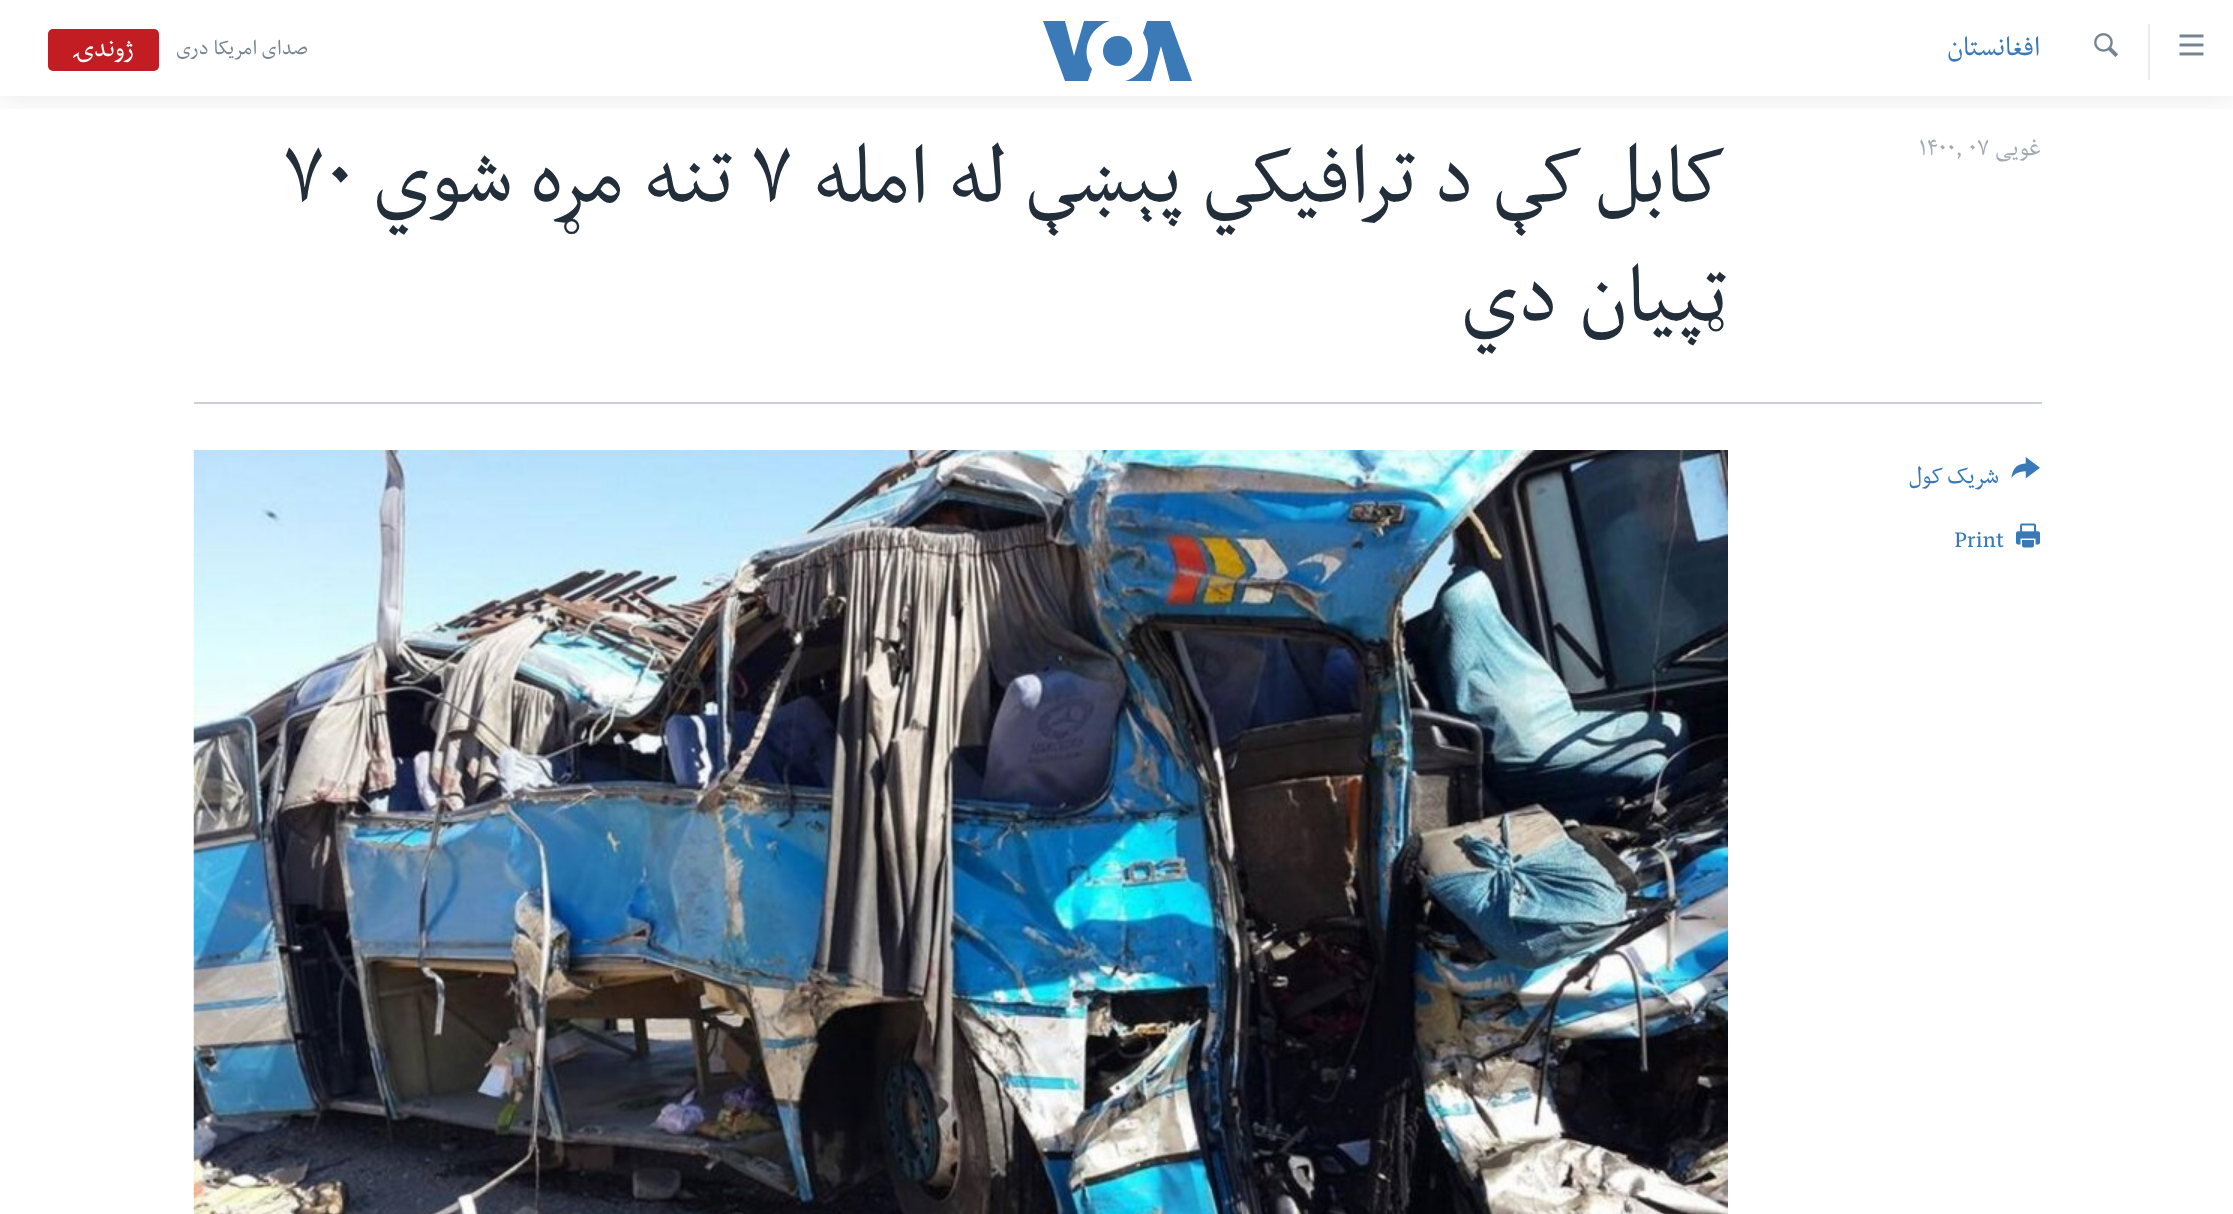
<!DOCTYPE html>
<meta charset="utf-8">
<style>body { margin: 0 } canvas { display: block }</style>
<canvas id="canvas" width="2233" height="1214"></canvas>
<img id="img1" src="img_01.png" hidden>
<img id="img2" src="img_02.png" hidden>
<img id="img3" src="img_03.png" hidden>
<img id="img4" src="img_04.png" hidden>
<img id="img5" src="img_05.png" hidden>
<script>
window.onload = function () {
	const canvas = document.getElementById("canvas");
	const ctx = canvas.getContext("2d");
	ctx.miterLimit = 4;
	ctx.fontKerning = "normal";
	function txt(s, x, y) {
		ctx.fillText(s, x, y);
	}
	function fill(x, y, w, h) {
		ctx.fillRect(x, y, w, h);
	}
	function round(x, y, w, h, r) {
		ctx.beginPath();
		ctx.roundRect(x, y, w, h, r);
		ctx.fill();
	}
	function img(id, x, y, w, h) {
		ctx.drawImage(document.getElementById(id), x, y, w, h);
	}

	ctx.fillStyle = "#FFFFFF";
	fill(0, 0, 2233, 1214);
	ctx.save();
	ctx.beginPath();
	ctx.rect(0, 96, 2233, 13);
	ctx.clip();
	ctx.fillStyle = "rgba(0, 0, 0, 0.1)";
	ctx.filter = "blur(15px)";
	ctx.beginPath();
	ctx.rect(0, 0, 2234, 96);
	ctx.fill();
	ctx.filter = "none";
	ctx.restore();
	img("img1", 2179, 34, 25, 22);
	ctx.fillStyle = "#EBEBEB";
	fill(2148, 24, 2, 56);
	img("img2", 2094, 33, 24, 24);
	ctx.fillStyle = "#3B79B7";
	ctx.beginPath();
	ctx.moveTo(1092, 69);
	ctx.lineTo(1088, 81);
	ctx.lineTo(1065, 81);
	ctx.lineTo(1043, 21);
	ctx.lineTo(1065, 21);
	ctx.lineTo(1074, 56);
	ctx.lineTo(1084, 21);
	ctx.lineTo(1110, 21);
	ctx.bezierCurveTo(1089, 27, 1080, 52, 1092, 69);
	ctx.closePath();
	ctx.moveTo(1118, 36);
	ctx.bezierCurveTo(1098, 36, 1098, 66, 1118, 66);
	ctx.bezierCurveTo(1137, 66, 1137, 36, 1118, 36);
	ctx.closePath();
	ctx.moveTo(1148, 51);
	ctx.bezierCurveTo(1148, 65, 1139, 77, 1125, 81);
	ctx.lineTo(1151, 81);
	ctx.lineTo(1161, 46);
	ctx.lineTo(1170, 81);
	ctx.lineTo(1192, 81);
	ctx.lineTo(1170, 21);
	ctx.lineTo(1147, 21);
	ctx.lineTo(1143, 33);
	ctx.bezierCurveTo(1146, 38, 1148, 44, 1148, 51);
	ctx.closePath();
	ctx.fill();
	ctx.fillStyle = "#C11D22";
	round(48, 29, 111, 42, 5);
	ctx.fillStyle = "#CBD1D6";
	fill(194, 402, 1848, 2);
	img("img3", 2011, 457, 29, 22);
	img("img4", 2016, 523, 24, 25);
	img("img5", 193, 450, 1535, 764);
	ctx.direction = "rtl";
	ctx.font = "31.5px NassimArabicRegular";
	ctx.fillStyle = "#3A79B7";
	txt("افغانستان", 2040, 55);
	ctx.font = "24px NassimArabicRegular";
	ctx.fillStyle = "#768492";
	txt("صدای امریکا دری", 308, 54);
	ctx.font = "30px NassimArabicRegular";
	ctx.fillStyle = "#FFFFFF";
	txt("ژوندۍ", 134, 56);
	ctx.font = "27.5px NassimArabicRegular";
	ctx.fillStyle = "#A1AAB4";
	txt("غویی", 2041, 155);
	ctx.direction = "ltr";
	txt("۱۴۰۰, ۰۷", 1919, 155);
	ctx.direction = "rtl";
	ctx.font = "94.5px NassimArabicRegular";
	ctx.fillStyle = "#222F3A";
	txt("کابل کې د ترافیکي پېښې له امله", 1727, 201);
	ctx.direction = "ltr";
	txt("۷", 751, 201);
	ctx.direction = "rtl";
	txt("تنه مړه شوي", 733, 201);
	ctx.direction = "ltr";
	txt("۷۰", 283, 201);
	ctx.direction = "rtl";
	txt("ټپیان دي", 1727, 320);
	ctx.font = "27.5px NassimArabicRegular";
	ctx.fillStyle = "#3A79B7";
	txt("شریک کول", 1999, 483);
	ctx.direction = "ltr";
	txt("Print", 1954, 547);
};
</script>
